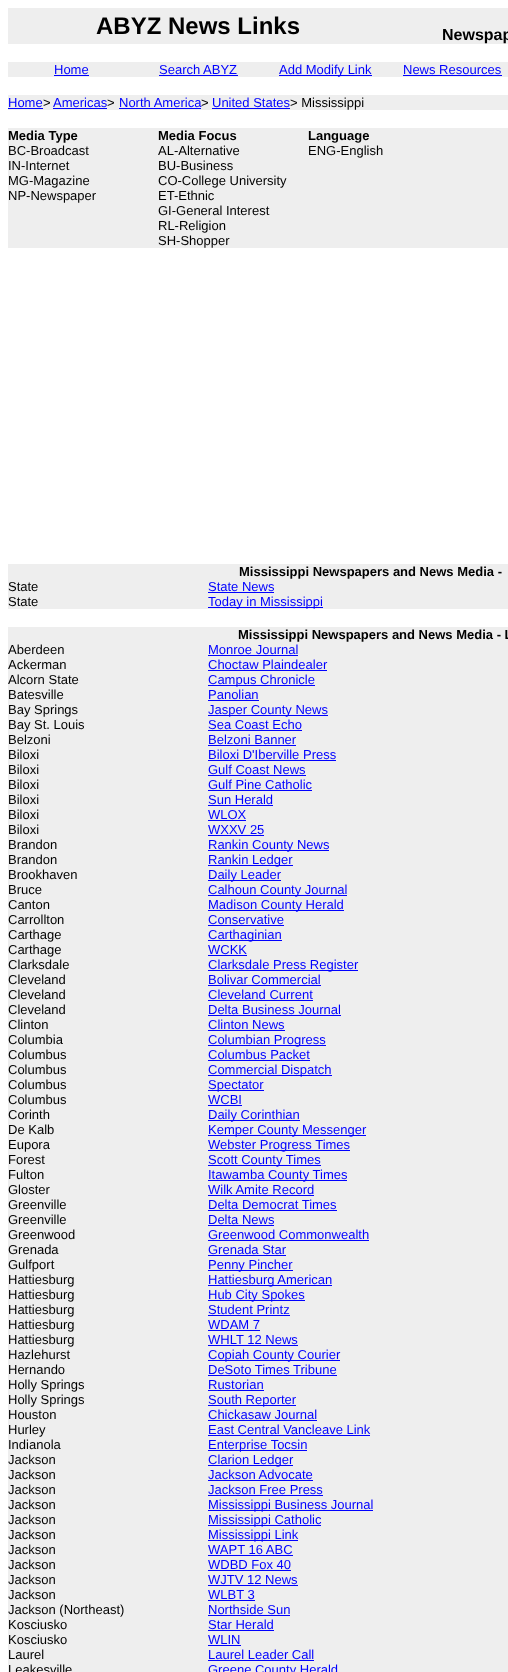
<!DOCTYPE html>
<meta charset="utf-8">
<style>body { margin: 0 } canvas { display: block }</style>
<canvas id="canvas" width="508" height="1672"></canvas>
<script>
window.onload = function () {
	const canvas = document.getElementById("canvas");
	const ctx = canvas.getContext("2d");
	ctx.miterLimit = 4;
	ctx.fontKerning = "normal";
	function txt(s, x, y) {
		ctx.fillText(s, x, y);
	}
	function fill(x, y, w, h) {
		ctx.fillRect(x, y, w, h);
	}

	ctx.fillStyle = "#FFFFFF";
	fill(0, 0, 508, 1672);
	ctx.fillStyle = "#EEEEEE";
	fill(8, 8, 500, 36);
	fill(8, 62, 500, 15);
	ctx.fillStyle = "#0000FF";
	fill(54, 75, 35, 1);
	fill(159, 75, 79, 1);
	fill(279, 75, 93, 1);
	fill(403, 75, 99, 1);
	ctx.fillStyle = "#EEEEEE";
	fill(8, 95, 500, 15);
	ctx.fillStyle = "#0000FF";
	fill(8, 108, 35, 1);
	fill(53, 108, 54, 1);
	fill(119, 108, 82, 1);
	fill(212, 108, 78, 1);
	ctx.fillStyle = "#EEEEEE";
	fill(8, 128, 500, 120);
	fill(8, 564, 500, 45);
	ctx.fillStyle = "#0000FF";
	fill(208, 592, 66, 1);
	fill(208, 607, 115, 1);
	ctx.fillStyle = "#EEEEEE";
	fill(8, 627, 500, 1045);
	ctx.fillStyle = "#0000FF";
	fill(208, 655, 90, 1);
	fill(208, 670, 119, 1);
	fill(208, 685, 107, 1);
	fill(208, 700, 51, 1);
	fill(208, 715, 120, 1);
	fill(208, 730, 94, 1);
	fill(208, 745, 88, 1);
	fill(208, 760, 128, 1);
	fill(208, 775, 98, 1);
	fill(208, 790, 104, 1);
	fill(208, 805, 65, 1);
	fill(208, 820, 38, 1);
	fill(208, 835, 56, 1);
	fill(208, 850, 121, 1);
	fill(208, 865, 85, 1);
	fill(208, 880, 73, 1);
	fill(208, 895, 139, 1);
	fill(208, 910, 136, 1);
	fill(208, 925, 76, 1);
	fill(208, 940, 74, 1);
	fill(208, 955, 39, 1);
	fill(208, 970, 150, 1);
	fill(208, 985, 113, 1);
	fill(208, 1000, 105, 1);
	fill(208, 1015, 133, 1);
	fill(208, 1030, 77, 1);
	fill(208, 1045, 118, 1);
	fill(208, 1060, 102, 1);
	fill(208, 1075, 124, 1);
	fill(208, 1090, 56, 1);
	fill(208, 1105, 34, 1);
	fill(208, 1120, 92, 1);
	fill(208, 1135, 158, 1);
	fill(208, 1150, 142, 1);
	fill(208, 1165, 113, 1);
	fill(208, 1180, 139, 1);
	fill(208, 1195, 106, 1);
	fill(208, 1210, 129, 1);
	fill(208, 1225, 66, 1);
	fill(208, 1240, 161, 1);
	fill(208, 1255, 78, 1);
	fill(208, 1270, 85, 1);
	fill(208, 1285, 124, 1);
	fill(208, 1300, 97, 1);
	fill(208, 1315, 82, 1);
	fill(208, 1330, 52, 1);
	fill(208, 1345, 90, 1);
	fill(208, 1360, 132, 1);
	fill(208, 1375, 129, 1);
	fill(208, 1390, 56, 1);
	fill(208, 1405, 88, 1);
	fill(208, 1420, 109, 1);
	fill(208, 1435, 162, 1);
	fill(208, 1450, 99, 1);
	fill(208, 1465, 85, 1);
	fill(208, 1480, 105, 1);
	fill(208, 1495, 115, 1);
	fill(208, 1510, 165, 1);
	fill(208, 1525, 113, 1);
	fill(208, 1540, 90, 1);
	fill(208, 1555, 85, 1);
	fill(208, 1570, 83, 1);
	fill(208, 1585, 90, 1);
	fill(208, 1600, 47, 1);
	fill(208, 1615, 82, 1);
	fill(208, 1630, 66, 1);
	fill(208, 1645, 33, 1);
	fill(208, 1660, 106, 1);
	ctx.font = "bold 24px Liberation Sans";
	ctx.fillStyle = "#000000";
	txt("ABYZ News Links", 96, 34);
	ctx.font = "bold 16px Liberation Sans";
	txt("Newspap", 442, 40);
	ctx.font = "13px Liberation Sans";
	ctx.fillStyle = "#0000FF";
	txt("Home", 54, 74);
	txt("Search ABYZ", 159, 74);
	txt("Add Modify Link", 279, 74);
	txt("News Resources", 403, 74);
	txt("Home", 8, 107);
	ctx.fillStyle = "#000000";
	txt(">", 43, 107);
	ctx.fillStyle = "#0000FF";
	txt("Americas", 53, 107);
	ctx.fillStyle = "#000000";
	txt(">", 107, 107);
	ctx.fillStyle = "#0000FF";
	txt("North America", 119, 107);
	ctx.fillStyle = "#000000";
	txt(">", 201, 107);
	ctx.fillStyle = "#0000FF";
	txt("United States", 212, 107);
	ctx.fillStyle = "#000000";
	txt("> Mississippi", 290, 107);
	ctx.font = "bold 13px Liberation Sans";
	txt("Media Type", 8, 140);
	ctx.font = "13px Liberation Sans";
	txt("BC-Broadcast", 8, 155);
	txt("IN-Internet", 8, 170);
	txt("MG-Magazine", 8, 185);
	txt("NP-Newspaper", 8, 200);
	ctx.font = "bold 13px Liberation Sans";
	txt("Media Focus", 158, 140);
	ctx.font = "13px Liberation Sans";
	txt("AL-Alternative", 158, 155);
	txt("BU-Business", 158, 170);
	txt("CO-College University", 158, 185);
	txt("ET-Ethnic", 158, 200);
	txt("GI-General Interest", 158, 215);
	txt("RL-Religion", 158, 230);
	txt("SH-Shopper", 158, 245);
	ctx.font = "bold 13px Liberation Sans";
	txt("Language", 308, 140);
	ctx.font = "13px Liberation Sans";
	txt("ENG-English", 308, 155);
	ctx.font = "bold 13px Liberation Sans";
	txt("Mississippi Newspapers and News Media -", 239, 576);
	ctx.font = "13px Liberation Sans";
	txt("State", 8, 591);
	txt("State", 8, 606);
	ctx.fillStyle = "#0000FF";
	txt("State News", 208, 591);
	txt("Today in Mississippi", 208, 606);
	ctx.font = "bold 13px Liberation Sans";
	ctx.fillStyle = "#000000";
	txt("Mississippi Newspapers and News Media - L", 238, 639);
	ctx.font = "13px Liberation Sans";
	txt("Aberdeen", 8, 654);
	txt("Ackerman", 8, 669);
	txt("Alcorn State", 8, 684);
	txt("Batesville", 8, 699);
	txt("Bay Springs", 8, 714);
	txt("Bay St. Louis", 8, 729);
	txt("Belzoni", 8, 744);
	txt("Biloxi", 8, 759);
	txt("Biloxi", 8, 774);
	txt("Biloxi", 8, 789);
	txt("Biloxi", 8, 804);
	txt("Biloxi", 8, 819);
	txt("Biloxi", 8, 834);
	txt("Brandon", 8, 849);
	txt("Brandon", 8, 864);
	txt("Brookhaven", 8, 879);
	txt("Bruce", 8, 894);
	txt("Canton", 8, 909);
	txt("Carrollton", 8, 924);
	txt("Carthage", 8, 939);
	txt("Carthage", 8, 954);
	txt("Clarksdale", 8, 969);
	txt("Cleveland", 8, 984);
	txt("Cleveland", 8, 999);
	txt("Cleveland", 8, 1014);
	txt("Clinton", 8, 1029);
	txt("Columbia", 8, 1044);
	txt("Columbus", 8, 1059);
	txt("Columbus", 8, 1074);
	txt("Columbus", 8, 1089);
	txt("Columbus", 8, 1104);
	txt("Corinth", 8, 1119);
	txt("De Kalb", 8, 1134);
	txt("Eupora", 8, 1149);
	txt("Forest", 8, 1164);
	txt("Fulton", 8, 1179);
	txt("Gloster", 8, 1194);
	txt("Greenville", 8, 1209);
	txt("Greenville", 8, 1224);
	txt("Greenwood", 8, 1239);
	txt("Grenada", 8, 1254);
	txt("Gulfport", 8, 1269);
	txt("Hattiesburg", 8, 1284);
	txt("Hattiesburg", 8, 1299);
	txt("Hattiesburg", 8, 1314);
	txt("Hattiesburg", 8, 1329);
	txt("Hattiesburg", 8, 1344);
	txt("Hazlehurst", 8, 1359);
	txt("Hernando", 8, 1374);
	txt("Holly Springs", 8, 1389);
	txt("Holly Springs", 8, 1404);
	txt("Houston", 8, 1419);
	txt("Hurley", 8, 1434);
	txt("Indianola", 8, 1449);
	txt("Jackson", 8, 1464);
	txt("Jackson", 8, 1479);
	txt("Jackson", 8, 1494);
	txt("Jackson", 8, 1509);
	txt("Jackson", 8, 1524);
	txt("Jackson", 8, 1539);
	txt("Jackson", 8, 1554);
	txt("Jackson", 8, 1569);
	txt("Jackson", 8, 1584);
	txt("Jackson", 8, 1599);
	txt("Jackson (Northeast)", 8, 1614);
	txt("Kosciusko", 8, 1629);
	txt("Kosciusko", 8, 1644);
	txt("Laurel", 8, 1659);
	txt("Leakesville", 8, 1674);
	ctx.fillStyle = "#0000FF";
	txt("Monroe Journal", 208, 654);
	txt("Choctaw Plaindealer", 208, 669);
	txt("Campus Chronicle", 208, 684);
	txt("Panolian", 208, 699);
	txt("Jasper County News", 208, 714);
	txt("Sea Coast Echo", 208, 729);
	txt("Belzoni Banner", 208, 744);
	txt("Biloxi D'Iberville Press", 208, 759);
	txt("Gulf Coast News", 208, 774);
	txt("Gulf Pine Catholic", 208, 789);
	txt("Sun Herald", 208, 804);
	txt("WLOX", 208, 819);
	txt("WXXV 25", 208, 834);
	txt("Rankin County News", 208, 849);
	txt("Rankin Ledger", 208, 864);
	txt("Daily Leader", 208, 879);
	txt("Calhoun County Journal", 208, 894);
	txt("Madison County Herald", 208, 909);
	txt("Conservative", 208, 924);
	txt("Carthaginian", 208, 939);
	txt("WCKK", 208, 954);
	txt("Clarksdale Press Register", 208, 969);
	txt("Bolivar Commercial", 208, 984);
	txt("Cleveland Current", 208, 999);
	txt("Delta Business Journal", 208, 1014);
	txt("Clinton News", 208, 1029);
	txt("Columbian Progress", 208, 1044);
	txt("Columbus Packet", 208, 1059);
	txt("Commercial Dispatch", 208, 1074);
	txt("Spectator", 208, 1089);
	txt("WCBI", 208, 1104);
	txt("Daily Corinthian", 208, 1119);
	txt("Kemper County Messenger", 208, 1134);
	txt("Webster Progress Times", 208, 1149);
	txt("Scott County Times", 208, 1164);
	txt("Itawamba County Times", 208, 1179);
	txt("Wilk Amite Record", 208, 1194);
	txt("Delta Democrat Times", 208, 1209);
	txt("Delta News", 208, 1224);
	txt("Greenwood Commonwealth", 208, 1239);
	txt("Grenada Star", 208, 1254);
	txt("Penny Pincher", 208, 1269);
	txt("Hattiesburg American", 208, 1284);
	txt("Hub City Spokes", 208, 1299);
	txt("Student Printz", 208, 1314);
	txt("WDAM 7", 208, 1329);
	txt("WHLT 12 News", 208, 1344);
	txt("Copiah County Courier", 208, 1359);
	txt("DeSoto Times Tribune", 208, 1374);
	txt("Rustorian", 208, 1389);
	txt("South Reporter", 208, 1404);
	txt("Chickasaw Journal", 208, 1419);
	txt("East Central Vancleave Link", 208, 1434);
	txt("Enterprise Tocsin", 208, 1449);
	txt("Clarion Ledger", 208, 1464);
	txt("Jackson Advocate", 208, 1479);
	txt("Jackson Free Press", 208, 1494);
	txt("Mississippi Business Journal", 208, 1509);
	txt("Mississippi Catholic", 208, 1524);
	txt("Mississippi Link", 208, 1539);
	txt("WAPT 16 ABC", 208, 1554);
	txt("WDBD Fox 40", 208, 1569);
	txt("WJTV 12 News", 208, 1584);
	txt("WLBT 3", 208, 1599);
	txt("Northside Sun", 208, 1614);
	txt("Star Herald", 208, 1629);
	txt("WLIN", 208, 1644);
	txt("Laurel Leader Call", 208, 1659);
	txt("Greene County Herald", 208, 1674);
};
</script>
